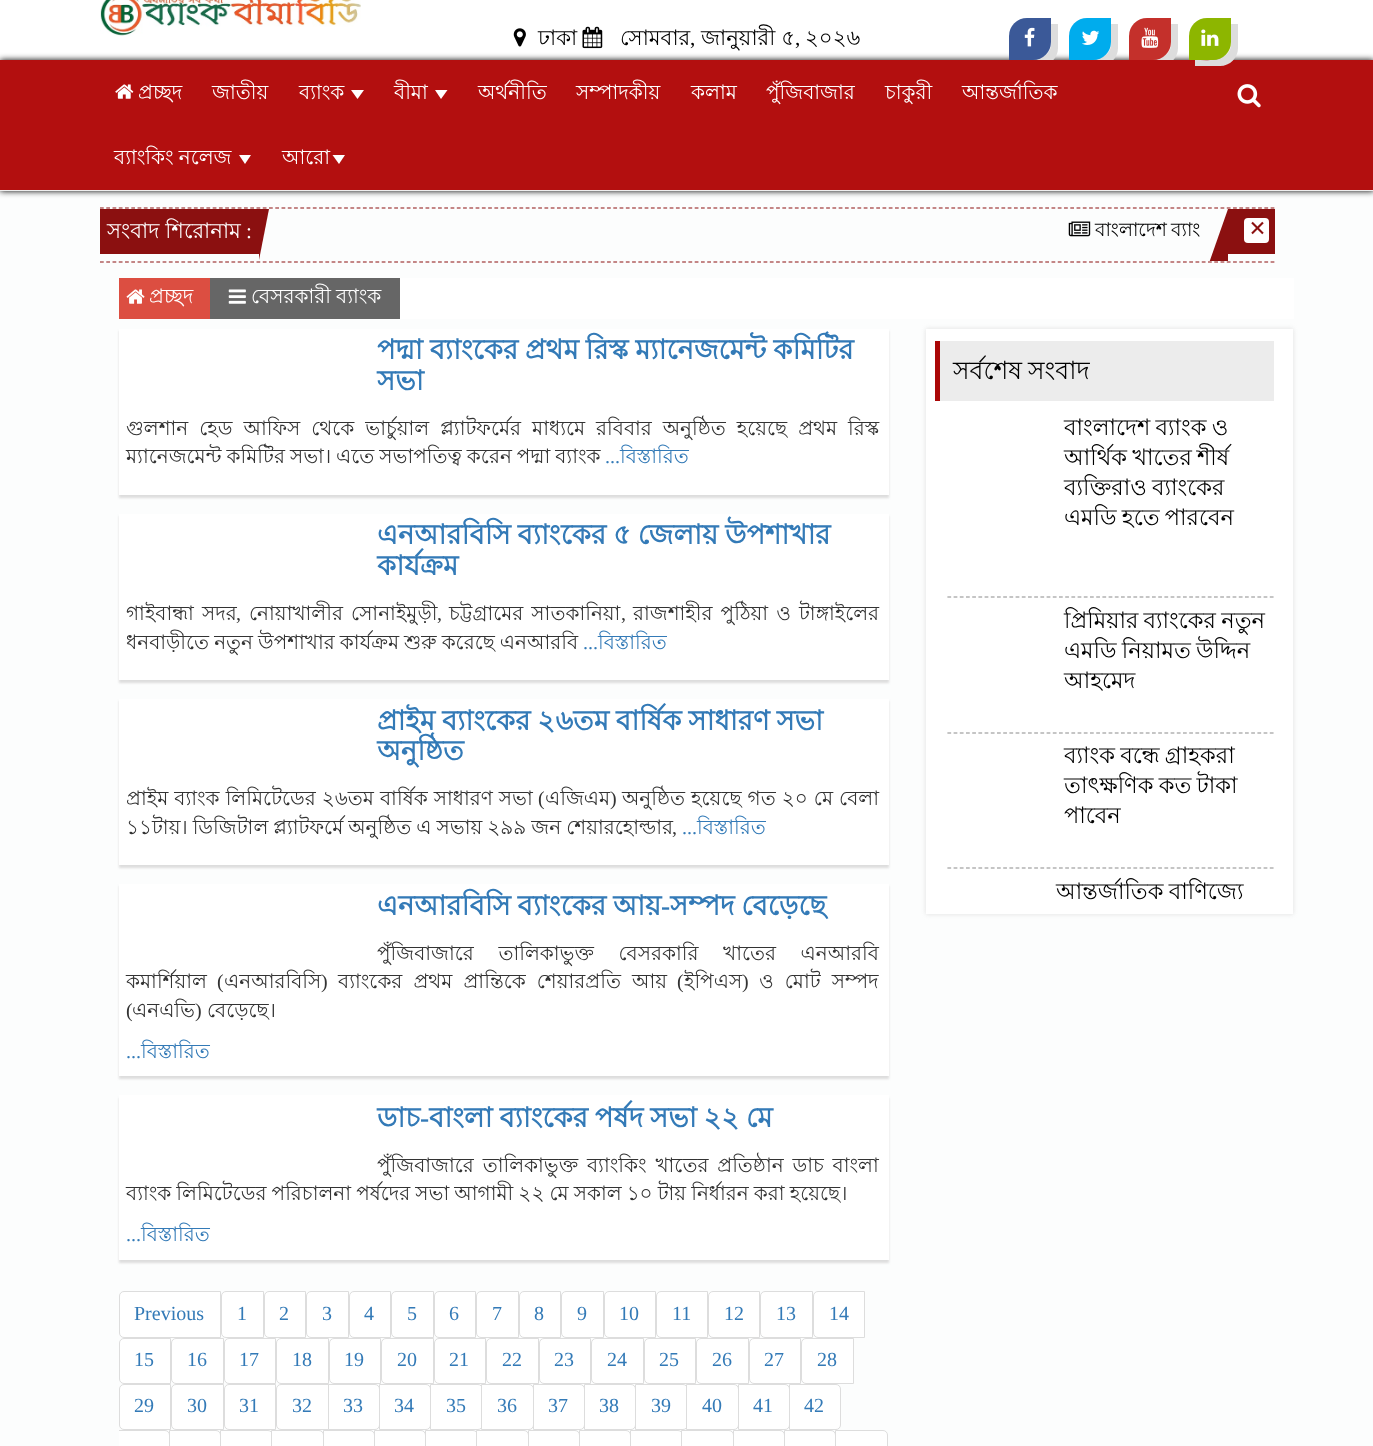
<!DOCTYPE html>
<meta charset="utf-8">
<style>body { margin: 0 } canvas { display: block }</style>
<canvas id="canvas" width="1373" height="1446"></canvas>
<img id="img1" src="img_01.png" hidden>
<img id="img2" src="img_02.png" hidden>
<img id="img3" src="img_03.png" hidden>
<img id="img4" src="img_04.png" hidden>
<img id="img5" src="img_05.png" hidden>
<img id="img6" src="img_06.png" hidden>
<img id="img7" src="img_07.png" hidden>
<img id="img8" src="img_08.png" hidden>
<img id="img9" src="img_09.png" hidden>
<img id="img10" src="img_10.png" hidden>
<img id="img11" src="img_11.png" hidden>
<img id="img12" src="img_12.png" hidden>
<script>
window.onload = function () {
	const canvas = document.getElementById("canvas");
	const ctx = canvas.getContext("2d");
	ctx.miterLimit = 4;
	ctx.fontKerning = "normal";
	function txt(s, x, y) {
		ctx.fillText(s, x, y);
	}
	function fill(x, y, w, h) {
		ctx.fillRect(x, y, w, h);
	}
	function round(x, y, w, h, r) {
		ctx.beginPath();
		ctx.roundRect(x, y, w, h, r);
		ctx.fill();
	}
	function img(id, x, y, w, h) {
		ctx.drawImage(document.getElementById(id), x, y, w, h);
	}

	ctx.fillStyle = "#FCFDFD";
	fill(0, 0, 1373, 1446);
	ctx.fillStyle = "#FFFFFF";
	fill(0, 0, 1373, 60);
	img("img1", 100, 0, 261, 36);
	img("img2", 513, 28, 13, 19);
	img("img3", 582, 26, 21, 23);
	ctx.fillStyle = "#000000";
	ctx.filter = "blur(3px)";
	ctx.beginPath();
	ctx.rect(0, 60, 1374, 131);
	ctx.fill();
	ctx.filter = "none";
	ctx.fillStyle = "#B30F0F";
	fill(0, 60, 1373, 130);
	ctx.fillStyle = "#DDDDDD";
	ctx.beginPath();
	ctx.moveTo(1015, 60);
	ctx.lineTo(1015, 66);
	ctx.lineTo(1040, 66);
	ctx.bezierCurveTo(1050, 66, 1058, 58, 1058, 48);
	ctx.lineTo(1058, 24);
	ctx.lineTo(1051, 24);
	ctx.lineTo(1051, 46);
	ctx.bezierCurveTo(1047, 63, 1028, 60, 1015, 60);
	ctx.closePath();
	ctx.fill();
	ctx.fillStyle = "#3B5998";
	ctx.beginPath();
	ctx.roundRect(1009, 18, 42, 42, [18, 0, 18, 0]);
	ctx.fill();
	img("img4", 1024, 27, 11, 20);
	ctx.fillStyle = "#DDDDDD";
	ctx.beginPath();
	ctx.moveTo(1075, 60);
	ctx.lineTo(1075, 66);
	ctx.lineTo(1100, 66);
	ctx.bezierCurveTo(1110, 66, 1118, 58, 1118, 48);
	ctx.lineTo(1118, 24);
	ctx.lineTo(1111, 24);
	ctx.lineTo(1111, 46);
	ctx.bezierCurveTo(1107, 63, 1088, 60, 1075, 60);
	ctx.closePath();
	ctx.fill();
	ctx.fillStyle = "#00ACED";
	ctx.beginPath();
	ctx.roundRect(1069, 18, 42, 42, [18, 0, 18, 0]);
	ctx.fill();
	img("img5", 1082, 30, 18, 15);
	ctx.fillStyle = "#DDDDDD";
	ctx.beginPath();
	ctx.moveTo(1135, 60);
	ctx.lineTo(1135, 66);
	ctx.lineTo(1160, 66);
	ctx.bezierCurveTo(1170, 66, 1178, 58, 1178, 48);
	ctx.lineTo(1178, 24);
	ctx.lineTo(1171, 24);
	ctx.lineTo(1171, 46);
	ctx.bezierCurveTo(1167, 63, 1148, 60, 1135, 60);
	ctx.closePath();
	ctx.fill();
	ctx.fillStyle = "#C4302B";
	ctx.beginPath();
	ctx.roundRect(1129, 18, 42, 42, [18, 0, 18, 0]);
	ctx.fill();
	img("img6", 1141, 27, 18, 21);
	ctx.fillStyle = "#DDDDDD";
	ctx.beginPath();
	ctx.moveTo(1195, 60);
	ctx.lineTo(1195, 66);
	ctx.lineTo(1220, 66);
	ctx.bezierCurveTo(1230, 66, 1238, 58, 1238, 48);
	ctx.lineTo(1238, 24);
	ctx.lineTo(1231, 24);
	ctx.lineTo(1231, 46);
	ctx.bezierCurveTo(1227, 63, 1208, 60, 1195, 60);
	ctx.closePath();
	ctx.fill();
	ctx.fillStyle = "#8DB600";
	ctx.beginPath();
	ctx.roundRect(1189, 18, 42, 42, [18, 0, 18, 0]);
	ctx.fill();
	img("img7", 1201, 29, 18, 17);
	ctx.fillStyle = "#EEEEEE";
	fill(0, 190, 1373, 1);
	ctx.fillStyle = "#B30F0F";
	fill(1015, 60, 159, 6);
	img("img8", 115, 84, 19, 15);
	ctx.fillStyle = "#FFFFFF";
	ctx.beginPath();
	ctx.moveTo(351, 90);
	ctx.lineTo(364, 90);
	ctx.lineTo(357.5, 99);
	ctx.closePath();
	ctx.fill();
	ctx.beginPath();
	ctx.moveTo(435, 90);
	ctx.lineTo(447.5, 90);
	ctx.lineTo(441, 99);
	ctx.closePath();
	ctx.fill();
	ctx.beginPath();
	ctx.moveTo(239, 155);
	ctx.lineTo(251, 155);
	ctx.lineTo(245, 164);
	ctx.closePath();
	ctx.fill();
	ctx.beginPath();
	ctx.moveTo(332.5, 155);
	ctx.lineTo(345, 155);
	ctx.lineTo(339, 164);
	ctx.closePath();
	ctx.fill();
	img("img9", 1237, 84, 24, 24);
	ctx.beginPath();
	ctx.moveTo(100, 208);
	ctx.lineTo(1275, 208);
	ctx.strokeStyle = "#8B1010";
	ctx.lineWidth = 1.2;
	ctx.setLineDash([3.75, 2.51]);
	ctx.stroke();
	ctx.beginPath();
	ctx.moveTo(100, 262);
	ctx.lineTo(1275, 262);
	ctx.stroke();
	ctx.fillStyle = "#8B1010";
	fill(100, 209, 159, 45);
	ctx.beginPath();
	ctx.moveTo(259, 209);
	ctx.lineTo(269, 209);
	ctx.lineTo(259, 260);
	ctx.closePath();
	ctx.fill();
	img("img10", 1068, 221, 23, 16);
	fill(1228, 209, 47, 45);
	ctx.save();
	ctx.beginPath();
	ctx.rect(81, 209, 1213, 52);
	ctx.clip();
	ctx.beginPath();
	ctx.moveTo(1228, 266);
	ctx.lineTo(1208, 266);
	ctx.lineTo(1228, 209);
	ctx.closePath();
	ctx.fill();
	ctx.restore();
	ctx.fillStyle = "#FFFFFF";
	round(1244, 218, 25, 25, 4);
	fill(400, 278, 894, 41);
	ctx.fillStyle = "#DC4E41";
	fill(119, 278, 91, 41);
	img("img11", 126, 289, 19, 15);
	ctx.fillStyle = "#666666";
	fill(210, 278, 190, 41);
	img("img12", 228, 289, 18, 15);
	ctx.fillStyle = "#DDDDDD";
	ctx.filter = "blur(1px)";
	ctx.beginPath();
	ctx.rect(119, 331, 770, 167);
	ctx.fill();
	ctx.filter = "none";
	ctx.fillStyle = "#FFFFFF";
	fill(119, 329, 770, 166);
	ctx.fillStyle = "#DDDDDD";
	ctx.filter = "blur(1px)";
	ctx.beginPath();
	ctx.rect(119, 516, 770, 167);
	ctx.fill();
	ctx.filter = "none";
	ctx.fillStyle = "#FFFFFF";
	fill(119, 514, 770, 166);
	ctx.fillStyle = "#DDDDDD";
	ctx.filter = "blur(1px)";
	ctx.beginPath();
	ctx.rect(119, 701, 770, 167);
	ctx.fill();
	ctx.filter = "none";
	ctx.fillStyle = "#FFFFFF";
	fill(119, 699, 770, 166);
	ctx.fillStyle = "#DDDDDD";
	ctx.filter = "blur(1px)";
	ctx.beginPath();
	ctx.rect(119, 886, 770, 193);
	ctx.fill();
	ctx.filter = "none";
	ctx.fillStyle = "#FFFFFF";
	fill(119, 884, 770, 192);
	ctx.fillStyle = "#DDDDDD";
	ctx.filter = "blur(1px)";
	ctx.beginPath();
	ctx.rect(119, 1098, 770, 165);
	ctx.fill();
	ctx.filter = "none";
	ctx.fillStyle = "#FFFFFF";
	fill(119, 1095, 770, 165);
	ctx.beginPath();
	ctx.roundRect(119.5, 1291.5, 101, 46, [4.5, 0, 0, 4.5]);
	ctx.fill();
	ctx.strokeStyle = "#DDDDDD";
	ctx.lineWidth = 1;
	ctx.setLineDash([]);
	ctx.stroke();
	ctx.beginPath();
	ctx.roundRect(221.5, 1291.5, 42, 46, [4.5, 0, 0, 4.5]);
	ctx.fill();
	ctx.stroke();
	ctx.beginPath();
	ctx.roundRect(264.5, 1291.5, 41, 46, [4.5, 0, 0, 4.5]);
	ctx.fill();
	ctx.stroke();
	ctx.beginPath();
	ctx.roundRect(306.5, 1291.5, 42, 46, [4.5, 0, 0, 4.5]);
	ctx.fill();
	ctx.stroke();
	ctx.beginPath();
	ctx.roundRect(349.5, 1291.5, 41, 46, [4.5, 0, 0, 4.5]);
	ctx.fill();
	ctx.stroke();
	ctx.beginPath();
	ctx.roundRect(391.5, 1291.5, 42, 46, [4.5, 0, 0, 4.5]);
	ctx.fill();
	ctx.stroke();
	ctx.beginPath();
	ctx.roundRect(434.5, 1291.5, 41, 46, [4.5, 0, 0, 4.5]);
	ctx.fill();
	ctx.stroke();
	ctx.beginPath();
	ctx.roundRect(476.5, 1291.5, 42, 46, [4.5, 0, 0, 4.5]);
	ctx.fill();
	ctx.stroke();
	ctx.beginPath();
	ctx.roundRect(519.5, 1291.5, 41, 46, [4.5, 0, 0, 4.5]);
	ctx.fill();
	ctx.stroke();
	ctx.beginPath();
	ctx.roundRect(561.5, 1291.5, 42, 46, [4.5, 0, 0, 4.5]);
	ctx.fill();
	ctx.stroke();
	ctx.beginPath();
	ctx.roundRect(604.5, 1291.5, 51, 46, [4.5, 0, 0, 4.5]);
	ctx.fill();
	ctx.stroke();
	ctx.beginPath();
	ctx.roundRect(656.5, 1291.5, 51, 46, [4.5, 0, 0, 4.5]);
	ctx.fill();
	ctx.stroke();
	ctx.beginPath();
	ctx.roundRect(708.5, 1291.5, 51, 46, [4.5, 0, 0, 4.5]);
	ctx.fill();
	ctx.stroke();
	ctx.beginPath();
	ctx.roundRect(760.5, 1291.5, 52, 46, [4.5, 0, 0, 4.5]);
	ctx.fill();
	ctx.stroke();
	ctx.beginPath();
	ctx.roundRect(813.5, 1291.5, 51, 46, [4.5, 0, 0, 4.5]);
	ctx.fill();
	ctx.stroke();
	ctx.beginPath();
	ctx.roundRect(119.5, 1338.5, 51, 45, [4.5, 0, 0, 4.5]);
	ctx.fill();
	ctx.stroke();
	ctx.beginPath();
	ctx.roundRect(171.5, 1338.5, 52, 45, [4.5, 0, 0, 4.5]);
	ctx.fill();
	ctx.stroke();
	ctx.beginPath();
	ctx.roundRect(224.5, 1338.5, 51, 45, [4.5, 0, 0, 4.5]);
	ctx.fill();
	ctx.stroke();
	ctx.beginPath();
	ctx.roundRect(276.5, 1338.5, 52, 45, [4.5, 0, 0, 4.5]);
	ctx.fill();
	ctx.stroke();
	ctx.beginPath();
	ctx.roundRect(329.5, 1338.5, 51, 45, [4.5, 0, 0, 4.5]);
	ctx.fill();
	ctx.stroke();
	ctx.beginPath();
	ctx.roundRect(381.5, 1338.5, 52, 45, [4.5, 0, 0, 4.5]);
	ctx.fill();
	ctx.stroke();
	ctx.beginPath();
	ctx.roundRect(434.5, 1338.5, 51, 45, [4.5, 0, 0, 4.5]);
	ctx.fill();
	ctx.stroke();
	ctx.beginPath();
	ctx.roundRect(486.5, 1338.5, 52, 45, [4.5, 0, 0, 4.5]);
	ctx.fill();
	ctx.stroke();
	ctx.beginPath();
	ctx.roundRect(539.5, 1338.5, 51, 45, [4.5, 0, 0, 4.5]);
	ctx.fill();
	ctx.stroke();
	ctx.beginPath();
	ctx.roundRect(591.5, 1338.5, 52, 45, [4.5, 0, 0, 4.5]);
	ctx.fill();
	ctx.stroke();
	ctx.beginPath();
	ctx.roundRect(644.5, 1338.5, 51, 45, [4.5, 0, 0, 4.5]);
	ctx.fill();
	ctx.stroke();
	ctx.beginPath();
	ctx.roundRect(696.5, 1338.5, 52, 45, [4.5, 0, 0, 4.5]);
	ctx.fill();
	ctx.stroke();
	ctx.beginPath();
	ctx.roundRect(749.5, 1338.5, 51, 45, [4.5, 0, 0, 4.5]);
	ctx.fill();
	ctx.stroke();
	ctx.beginPath();
	ctx.roundRect(801.5, 1338.5, 52, 45, [4.5, 0, 0, 4.5]);
	ctx.fill();
	ctx.stroke();
	ctx.beginPath();
	ctx.roundRect(119.5, 1384.5, 51, 45, [4.5, 0, 0, 4.5]);
	ctx.fill();
	ctx.stroke();
	ctx.beginPath();
	ctx.roundRect(171.5, 1384.5, 52, 45, [4.5, 0, 0, 4.5]);
	ctx.fill();
	ctx.stroke();
	ctx.beginPath();
	ctx.roundRect(224.5, 1384.5, 51, 45, [4.5, 0, 0, 4.5]);
	ctx.fill();
	ctx.stroke();
	ctx.beginPath();
	ctx.roundRect(276.5, 1384.5, 52, 45, [4.5, 0, 0, 4.5]);
	ctx.fill();
	ctx.stroke();
	ctx.beginPath();
	ctx.roundRect(328.5, 1384.5, 51, 45, [0, 4.5, 4.5, 0]);
	ctx.fill();
	ctx.stroke();
	ctx.beginPath();
	ctx.roundRect(379.5, 1384.5, 51, 45, [0, 4.5, 4.5, 0]);
	ctx.fill();
	ctx.stroke();
	ctx.beginPath();
	ctx.roundRect(430.5, 1384.5, 52, 45, [0, 4.5, 4.5, 0]);
	ctx.fill();
	ctx.stroke();
	ctx.beginPath();
	ctx.roundRect(481.5, 1384.5, 52, 45, [0, 4.5, 4.5, 0]);
	ctx.fill();
	ctx.stroke();
	ctx.beginPath();
	ctx.roundRect(533.5, 1384.5, 51, 45, [0, 4.5, 4.5, 0]);
	ctx.fill();
	ctx.stroke();
	ctx.beginPath();
	ctx.roundRect(584.5, 1384.5, 51, 45, [0, 4.5, 4.5, 0]);
	ctx.fill();
	ctx.stroke();
	ctx.beginPath();
	ctx.roundRect(635.5, 1384.5, 52, 45, [0, 4.5, 4.5, 0]);
	ctx.fill();
	ctx.stroke();
	ctx.beginPath();
	ctx.roundRect(686.5, 1384.5, 52, 45, [0, 4.5, 4.5, 0]);
	ctx.fill();
	ctx.stroke();
	ctx.beginPath();
	ctx.roundRect(738.5, 1384.5, 51, 45, [0, 4.5, 4.5, 0]);
	ctx.fill();
	ctx.stroke();
	ctx.beginPath();
	ctx.roundRect(789.5, 1384.5, 51, 45, [0, 4.5, 4.5, 0]);
	ctx.fill();
	ctx.stroke();
	ctx.beginPath();
	ctx.moveTo(119, 1430);
	ctx.lineTo(165, 1430);
	ctx.bezierCurveTo(168, 1430, 170, 1432, 170, 1435);
	ctx.lineTo(170, 1446);
	ctx.bezierCurveTo(170, 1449, 168, 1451, 165, 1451);
	ctx.lineTo(119, 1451);
	ctx.closePath();
	ctx.fill();
	ctx.save();
	ctx.beginPath();
	ctx.rect(119, 1266, 770, 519);
	ctx.clip();
	ctx.beginPath();
	ctx.moveTo(118.5, 1430.5);
	ctx.lineTo(165, 1430.5);
	ctx.bezierCurveTo(167.5, 1430.5, 169.5, 1432.5, 169.5, 1435);
	ctx.lineTo(169.5, 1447);
	ctx.bezierCurveTo(169.5, 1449.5, 167.5, 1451.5, 165, 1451.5);
	ctx.lineTo(118.5, 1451.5);
	ctx.closePath();
	ctx.stroke();
	ctx.restore();
	ctx.beginPath();
	ctx.moveTo(169.5, 1430.5);
	ctx.lineTo(216, 1430.5);
	ctx.bezierCurveTo(218.5, 1430.5, 220.5, 1432.5, 220.5, 1435);
	ctx.lineTo(220.5, 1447);
	ctx.bezierCurveTo(220.5, 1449.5, 218.5, 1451.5, 216, 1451.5);
	ctx.lineTo(169.5, 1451.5);
	ctx.closePath();
	ctx.fill();
	ctx.stroke();
	ctx.beginPath();
	ctx.moveTo(220.5, 1430.5);
	ctx.lineTo(268, 1430.5);
	ctx.bezierCurveTo(270.5, 1430.5, 272.5, 1432.5, 272.5, 1435);
	ctx.lineTo(272.5, 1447);
	ctx.bezierCurveTo(272.5, 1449.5, 270.5, 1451.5, 268, 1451.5);
	ctx.lineTo(220.5, 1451.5);
	ctx.closePath();
	ctx.fill();
	ctx.stroke();
	ctx.beginPath();
	ctx.moveTo(271.5, 1430.5);
	ctx.lineTo(319, 1430.5);
	ctx.bezierCurveTo(321.5, 1430.5, 323.5, 1432.5, 323.5, 1435);
	ctx.lineTo(323.5, 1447);
	ctx.bezierCurveTo(323.5, 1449.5, 321.5, 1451.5, 319, 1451.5);
	ctx.lineTo(271.5, 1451.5);
	ctx.closePath();
	ctx.fill();
	ctx.stroke();
	ctx.beginPath();
	ctx.moveTo(323.5, 1430.5);
	ctx.lineTo(370, 1430.5);
	ctx.bezierCurveTo(372.5, 1430.5, 374.5, 1432.5, 374.5, 1435);
	ctx.lineTo(374.5, 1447);
	ctx.bezierCurveTo(374.5, 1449.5, 372.5, 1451.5, 370, 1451.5);
	ctx.lineTo(323.5, 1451.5);
	ctx.closePath();
	ctx.fill();
	ctx.stroke();
	ctx.beginPath();
	ctx.moveTo(374.5, 1430.5);
	ctx.lineTo(421, 1430.5);
	ctx.bezierCurveTo(423.5, 1430.5, 425.5, 1432.5, 425.5, 1435);
	ctx.lineTo(425.5, 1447);
	ctx.bezierCurveTo(425.5, 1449.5, 423.5, 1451.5, 421, 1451.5);
	ctx.lineTo(374.5, 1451.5);
	ctx.closePath();
	ctx.fill();
	ctx.stroke();
	ctx.beginPath();
	ctx.moveTo(425.5, 1430.5);
	ctx.lineTo(473, 1430.5);
	ctx.bezierCurveTo(475.5, 1430.5, 477.5, 1432.5, 477.5, 1435);
	ctx.lineTo(477.5, 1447);
	ctx.bezierCurveTo(477.5, 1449.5, 475.5, 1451.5, 473, 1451.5);
	ctx.lineTo(425.5, 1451.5);
	ctx.closePath();
	ctx.fill();
	ctx.stroke();
	ctx.beginPath();
	ctx.moveTo(476.5, 1430.5);
	ctx.lineTo(524, 1430.5);
	ctx.bezierCurveTo(526.5, 1430.5, 528.5, 1432.5, 528.5, 1435);
	ctx.lineTo(528.5, 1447);
	ctx.bezierCurveTo(528.5, 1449.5, 526.5, 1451.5, 524, 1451.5);
	ctx.lineTo(476.5, 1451.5);
	ctx.closePath();
	ctx.fill();
	ctx.stroke();
	ctx.beginPath();
	ctx.moveTo(528.5, 1430.5);
	ctx.lineTo(575, 1430.5);
	ctx.bezierCurveTo(577.5, 1430.5, 579.5, 1432.5, 579.5, 1435);
	ctx.lineTo(579.5, 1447);
	ctx.bezierCurveTo(579.5, 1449.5, 577.5, 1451.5, 575, 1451.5);
	ctx.lineTo(528.5, 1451.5);
	ctx.closePath();
	ctx.fill();
	ctx.stroke();
	ctx.beginPath();
	ctx.moveTo(579.5, 1430.5);
	ctx.lineTo(626, 1430.5);
	ctx.bezierCurveTo(628.5, 1430.5, 630.5, 1432.5, 630.5, 1435);
	ctx.lineTo(630.5, 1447);
	ctx.bezierCurveTo(630.5, 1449.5, 628.5, 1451.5, 626, 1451.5);
	ctx.lineTo(579.5, 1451.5);
	ctx.closePath();
	ctx.fill();
	ctx.stroke();
	ctx.beginPath();
	ctx.moveTo(630.5, 1430.5);
	ctx.lineTo(678, 1430.5);
	ctx.bezierCurveTo(680.5, 1430.5, 682.5, 1432.5, 682.5, 1435);
	ctx.lineTo(682.5, 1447);
	ctx.bezierCurveTo(682.5, 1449.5, 680.5, 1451.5, 678, 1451.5);
	ctx.lineTo(630.5, 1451.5);
	ctx.closePath();
	ctx.fill();
	ctx.stroke();
	ctx.beginPath();
	ctx.moveTo(681.5, 1430.5);
	ctx.lineTo(729, 1430.5);
	ctx.bezierCurveTo(731.5, 1430.5, 733.5, 1432.5, 733.5, 1435);
	ctx.lineTo(733.5, 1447);
	ctx.bezierCurveTo(733.5, 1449.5, 731.5, 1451.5, 729, 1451.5);
	ctx.lineTo(681.5, 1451.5);
	ctx.closePath();
	ctx.fill();
	ctx.stroke();
	ctx.beginPath();
	ctx.moveTo(733.5, 1430.5);
	ctx.lineTo(780, 1430.5);
	ctx.bezierCurveTo(782.5, 1430.5, 784.5, 1432.5, 784.5, 1435);
	ctx.lineTo(784.5, 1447);
	ctx.bezierCurveTo(784.5, 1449.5, 782.5, 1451.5, 780, 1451.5);
	ctx.lineTo(733.5, 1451.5);
	ctx.closePath();
	ctx.fill();
	ctx.stroke();
	ctx.beginPath();
	ctx.moveTo(784.5, 1430.5);
	ctx.lineTo(831, 1430.5);
	ctx.bezierCurveTo(833.5, 1430.5, 835.5, 1432.5, 835.5, 1435);
	ctx.lineTo(835.5, 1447);
	ctx.bezierCurveTo(835.5, 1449.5, 833.5, 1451.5, 831, 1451.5);
	ctx.lineTo(784.5, 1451.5);
	ctx.closePath();
	ctx.fill();
	ctx.stroke();
	ctx.beginPath();
	ctx.moveTo(835.5, 1430.5);
	ctx.lineTo(883, 1430.5);
	ctx.bezierCurveTo(885.5, 1430.5, 887.5, 1432.5, 887.5, 1435);
	ctx.lineTo(887.5, 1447);
	ctx.bezierCurveTo(887.5, 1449.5, 885.5, 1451.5, 883, 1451.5);
	ctx.lineTo(835.5, 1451.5);
	ctx.closePath();
	ctx.fill();
	ctx.stroke();
	ctx.fillStyle = "#DFDFDF";
	ctx.filter = "blur(2.5px)";
	ctx.beginPath();
	ctx.rect(926, 329, 367, 585);
	ctx.fill();
	ctx.filter = "none";
	ctx.fillStyle = "#FFFFFF";
	fill(926, 329, 367, 585);
	ctx.fillStyle = "#ECECEC";
	fill(940, 341, 334, 60);
	ctx.fillStyle = "#AA0707";
	fill(935, 341, 5, 60);
	ctx.save();
	ctx.beginPath();
	ctx.rect(945, 401, 329, 500);
	ctx.clip();
	ctx.beginPath();
	ctx.moveTo(935, 597);
	ctx.lineTo(1274, 597);
	ctx.strokeStyle = "#8C8C8C";
	ctx.lineWidth = 1.2;
	ctx.setLineDash([3.75, 2.45]);
	ctx.stroke();
	ctx.beginPath();
	ctx.moveTo(935, 733);
	ctx.lineTo(1274, 733);
	ctx.stroke();
	ctx.beginPath();
	ctx.moveTo(935, 868);
	ctx.lineTo(1274, 868);
	ctx.stroke();
	ctx.restore();
	ctx.font = "21.25px Lohit Bengali";
	ctx.fillStyle = "#000000";
	txt("ঢাকা", 538, 45);
	txt("সোমবার", 620, 45);
	ctx.font = "21.25px Liberation Serif";
	txt(",", 690, 45);
	ctx.font = "21.25px Lohit Bengali";
	txt("জানুয়ারী ৫", 701, 45);
	ctx.font = "21.25px Liberation Serif";
	txt(",", 795, 45);
	ctx.font = "21.25px Lohit Bengali";
	txt("২০২৬", 805, 45);
	ctx.font = "20px Lohit Bengali";
	ctx.fillStyle = "#FFFFFF";
	txt("প্রচ্ছদ", 138, 99);
	txt("জাতীয়", 212, 99);
	txt("ব্যাংক", 299, 99);
	txt("বীমা", 394, 99);
	txt("অর্থনীতি", 478, 99);
	txt("সম্পাদকীয়", 576, 99);
	txt("কলাম", 691, 99);
	txt("পুঁজিবাজার", 766, 99);
	txt("চাকুরী", 885, 99);
	txt("আন্তর্জাতিক", 962, 99);
	ctx.wordSpacing = "-0.5px";
	txt("ব্যাংকিং নলেজ", 114, 164);
	ctx.wordSpacing = "0px";
	txt("আরো", 282, 164);
	ctx.font = "21.25px Lohit Bengali";
	txt("সংবাদ শিরোনাম", 107, 238);
	ctx.font = "21.25px Liberation Serif";
	txt(":", 246, 238);
	ctx.wordSpacing = "-1px";
	ctx.font = "18.75px Lohit Bengali";
	ctx.fillStyle = "#000000";
	txt("বাংলাদেশ ব্যাং", 1095, 236);
	ctx.wordSpacing = "0px";
	ctx.font = "bold 30px Liberation Serif";
	ctx.fillStyle = "#8B1010";
	txt("×", 1249, 238);
	ctx.font = "20px Lohit Bengali";
	ctx.fillStyle = "#FFFFFF";
	txt("প্রচ্ছদ", 149, 303);
	ctx.wordSpacing = "-0.5px";
	txt("বেসরকারী ব্যাংক", 251, 303);
	ctx.wordSpacing = "-0.75px";
	ctx.font = "bold 27.5px Lohit Bengali";
	ctx.fillStyle = "#337AB7";
	txt("পদ্মা ব্যাংকের প্রথম রিস্ক ম্যানেজমেন্ট কমিটির", 377, 359);
	ctx.wordSpacing = "0px";
	txt("সভা", 377, 390);
	ctx.wordSpacing = "5.4px";
	ctx.font = "20px Lohit Bengali";
	ctx.fillStyle = "#333333";
	txt("গুলশান হেড আফিস থেকে ভার্চুয়াল প্ল্যাটফর্মের মাধ্যমে রবিবার অনুষ্ঠিত হয়েছে প্রথম রিস্ক", 126, 435);
	ctx.wordSpacing = "-0.5px";
	txt("ম্যানেজমেন্ট কমিটির সভা। এতে সভাপতিত্ব করেন পদ্মা ব্যাংক", 126, 463);
	ctx.wordSpacing = "0px";
	ctx.font = "20px Liberation Serif";
	ctx.fillStyle = "#337AB7";
	txt("...", 605, 463);
	ctx.font = "20px Lohit Bengali";
	txt("বিস্তারিত", 620, 463);
	ctx.wordSpacing = "-0.75px";
	ctx.font = "bold 27.5px Lohit Bengali";
	txt("এনআরবিসি ব্যাংকের ৫ জেলায় উপশাখার", 377, 544);
	ctx.wordSpacing = "0px";
	txt("কার্যক্রম", 377, 575);
	ctx.wordSpacing = "2.5px";
	ctx.font = "20px Lohit Bengali";
	ctx.fillStyle = "#333333";
	txt("গাইবান্ধা সদর", 126, 620);
	ctx.wordSpacing = "0px";
	ctx.font = "20px Liberation Serif";
	txt(",", 236, 620);
	ctx.wordSpacing = "2.5px";
	ctx.font = "20px Lohit Bengali";
	txt("নোয়াখালীর সোনাইমুড়ী", 249, 620);
	ctx.wordSpacing = "0px";
	ctx.font = "20px Liberation Serif";
	txt(",", 437, 620);
	ctx.wordSpacing = "2.5px";
	ctx.font = "20px Lohit Bengali";
	txt("চট্টগ্রামের সাতকানিয়া", 449, 620);
	ctx.wordSpacing = "0px";
	ctx.font = "20px Liberation Serif";
	txt(",", 621, 620);
	ctx.wordSpacing = "2.5px";
	ctx.font = "20px Lohit Bengali";
	txt("রাজশাহীর পুঠিয়া ও টাঙ্গাইলের", 633, 620);
	ctx.wordSpacing = "-0.5px";
	txt("ধনবাড়ীতে নতুন উপশাখার কার্যক্রম শুরু করেছে এনআরবি", 126, 649);
	ctx.wordSpacing = "0px";
	ctx.font = "20px Liberation Serif";
	ctx.fillStyle = "#337AB7";
	txt("...", 583, 649);
	ctx.font = "20px Lohit Bengali";
	txt("বিস্তারিত", 598, 649);
	ctx.wordSpacing = "-0.75px";
	ctx.font = "bold 27.5px Lohit Bengali";
	txt("প্রাইম ব্যাংকের ২৬তম বার্ষিক সাধারণ সভা", 377, 730);
	ctx.wordSpacing = "0px";
	txt("অনুষ্ঠিত", 377, 760);
	ctx.wordSpacing = "0.5px";
	ctx.font = "20px Lohit Bengali";
	ctx.fillStyle = "#333333";
	txt("প্রাইম ব্যাংক লিমিটেডের ২৬তম বার্ষিক সাধারণ সভা", 126, 805);
	ctx.wordSpacing = "0px";
	ctx.font = "20px Liberation Serif";
	txt("(", 538, 805);
	ctx.font = "20px Lohit Bengali";
	txt("এজিএম", 545, 805);
	ctx.font = "20px Liberation Serif";
	txt(")", 610, 805);
	ctx.wordSpacing = "0.5px";
	ctx.font = "20px Lohit Bengali";
	txt("অনুষ্ঠিত হয়েছে গত ২০ মে বেলা", 622, 805);
	ctx.wordSpacing = "-0.5px";
	txt("১১টায়। ডিজিটাল প্ল্যাটফর্মে অনুষ্ঠিত এ সভায় ২৯৯ জন শেয়ারহোল্ডার", 126, 834);
	ctx.wordSpacing = "0px";
	ctx.font = "20px Liberation Serif";
	txt(",", 672, 834);
	ctx.fillStyle = "#337AB7";
	txt("...", 682, 834);
	ctx.font = "20px Lohit Bengali";
	txt("বিস্তারিত", 697, 834);
	ctx.wordSpacing = "-0.75px";
	ctx.font = "bold 27.5px Lohit Bengali";
	txt("এনআরবিসি ব্যাংকের আয়", 377, 915);
	ctx.wordSpacing = "0px";
	ctx.font = "bold 27.5px Liberation Serif";
	txt("-", 661, 915);
	ctx.wordSpacing = "-0.75px";
	ctx.font = "bold 27.5px Lohit Bengali";
	txt("সম্পদ বেড়েছে", 670, 915);
	ctx.wordSpacing = "19px";
	ctx.font = "20px Lohit Bengali";
	ctx.fillStyle = "#333333";
	txt("পুঁজিবাজারে তালিকাভুক্ত বেসরকারি খাতের এনআরবি", 377, 960);
	ctx.wordSpacing = "0px";
	txt("কমার্শিয়াল", 126, 988);
	ctx.font = "20px Liberation Serif";
	txt("(", 217, 988);
	ctx.font = "20px Lohit Bengali";
	txt("এনআরবিসি", 224, 988);
	ctx.font = "20px Liberation Serif";
	txt(")", 321, 988);
	ctx.wordSpacing = "5.5px";
	ctx.font = "20px Lohit Bengali";
	txt("ব্যাংকের প্রথম প্রান্তিকে শেয়ারপ্রতি আয়", 338, 988);
	ctx.wordSpacing = "0px";
	ctx.font = "20px Liberation Serif";
	txt("(", 677, 988);
	ctx.font = "20px Lohit Bengali";
	txt("ইপিএস", 684, 988);
	ctx.font = "20px Liberation Serif";
	txt(")", 742, 988);
	ctx.wordSpacing = "5.5px";
	ctx.font = "20px Lohit Bengali";
	txt("ও মোট সম্পদ", 759, 988);
	ctx.wordSpacing = "0px";
	ctx.font = "20px Liberation Serif";
	txt("(", 126, 1017);
	ctx.font = "20px Lohit Bengali";
	txt("এনএভি", 132, 1017);
	ctx.font = "20px Liberation Serif";
	txt(")", 195, 1017);
	ctx.font = "20px Lohit Bengali";
	txt("বেড়েছে।", 207, 1017);
	ctx.font = "20px Liberation Serif";
	ctx.fillStyle = "#337AB7";
	txt("...", 126, 1058);
	ctx.font = "20px Lohit Bengali";
	txt("বিস্তারিত", 141, 1058);
	ctx.font = "bold 27.5px Lohit Bengali";
	txt("ডাচ", 377, 1127);
	ctx.font = "bold 27.5px Liberation Serif";
	txt("-", 420, 1127);
	ctx.wordSpacing = "-0.75px";
	ctx.font = "bold 27.5px Lohit Bengali";
	txt("বাংলা ব্যাংকের পর্ষদ সভা ২২ মে", 429, 1127);
	ctx.wordSpacing = "3.25px";
	ctx.font = "20px Lohit Bengali";
	ctx.fillStyle = "#333333";
	txt("পুঁজিবাজারে তালিকাভুক্ত ব্যাংকিং খাতের প্রতিষ্ঠান ডাচ বাংলা", 377, 1172);
	ctx.wordSpacing = "-0.5px";
	txt("ব্যাংক লিমিটেডের পরিচালনা পর্ষদের সভা আগামী ২২ মে সকাল ১০ টায় নির্ধারন করা হয়েছে।", 126, 1200);
	ctx.wordSpacing = "0px";
	ctx.font = "20px Liberation Serif";
	ctx.fillStyle = "#337AB7";
	txt("...", 126, 1241);
	ctx.font = "20px Lohit Bengali";
	txt("বিস্তারিত", 141, 1241);
	ctx.font = "20px Liberation Serif";
	txt("Previous", 134, 1320);
	txt("1", 237, 1320);
	txt("2", 279, 1320);
	txt("3", 322, 1320);
	txt("4", 364, 1320);
	txt("5", 407, 1320);
	txt("6", 449, 1320);
	txt("7", 492, 1320);
	txt("8", 534, 1320);
	txt("9", 577, 1320);
	txt("10", 619, 1320);
	txt("11", 672, 1320);
	txt("12", 724, 1320);
	txt("13", 776, 1320);
	txt("14", 829, 1320);
	txt("15", 134, 1366);
	txt("16", 187, 1366);
	txt("17", 239, 1366);
	txt("18", 292, 1366);
	txt("19", 344, 1366);
	txt("20", 397, 1366);
	txt("21", 449, 1366);
	txt("22", 502, 1366);
	txt("23", 554, 1366);
	txt("24", 607, 1366);
	txt("25", 659, 1366);
	txt("26", 712, 1366);
	txt("27", 764, 1366);
	txt("28", 817, 1366);
	txt("29", 134, 1412);
	txt("30", 187, 1412);
	txt("31", 239, 1412);
	txt("32", 292, 1412);
	txt("33", 343, 1412);
	txt("34", 394, 1412);
	txt("35", 446, 1412);
	txt("36", 497, 1412);
	txt("37", 548, 1412);
	txt("38", 599, 1412);
	txt("39", 651, 1412);
	txt("40", 702, 1412);
	txt("41", 753, 1412);
	txt("42", 804, 1412);
	ctx.wordSpacing = "-1px";
	ctx.font = "25px Lohit Bengali";
	ctx.fillStyle = "#000000";
	txt("সর্বশেষ সংবাদ", 953, 379);
	ctx.font = "22.5px Lohit Bengali";
	txt("বাংলাদেশ ব্যাংক ও", 1064, 435);
	txt("আর্থিক খাতের শীর্ষ", 1064, 465);
	txt("ব্যক্তিরাও ব্যাংকের", 1064, 495);
	txt("এমডি হতে পারবেন", 1064, 525);
	txt("প্রিমিয়ার ব্যাংকের নতুন", 1064, 628);
	txt("এমডি নিয়ামত উদ্দিন", 1064, 658);
	ctx.wordSpacing = "0px";
	txt("আহমেদ", 1064, 688);
	ctx.wordSpacing = "-1px";
	txt("ব্যাংক বন্ধে গ্রাহকরা", 1064, 763);
	txt("তাৎক্ষণিক কত টাকা", 1064, 793);
	ctx.wordSpacing = "0px";
	txt("পাবেন", 1064, 823);
	ctx.wordSpacing = "-1px";
	txt("আন্তর্জাতিক বাণিজ্যে", 1056, 899);
};
</script>
